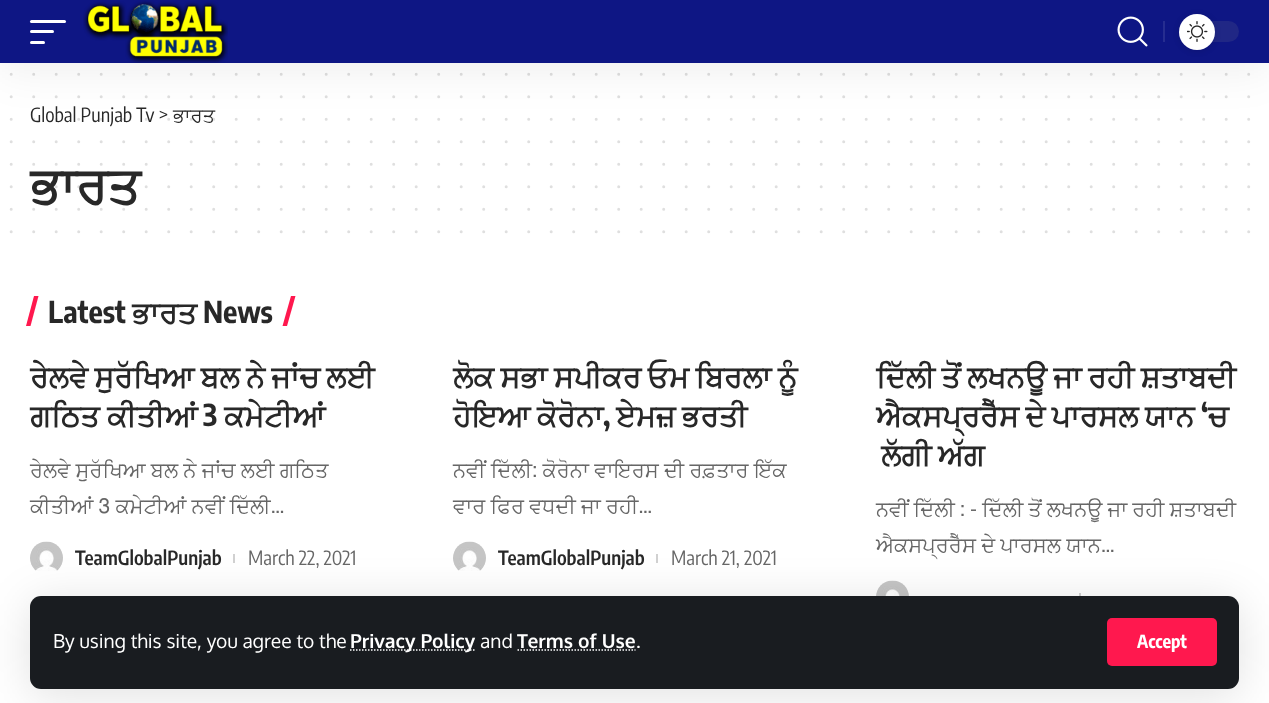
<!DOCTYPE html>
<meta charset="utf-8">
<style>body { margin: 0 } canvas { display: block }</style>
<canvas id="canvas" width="1269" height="703"></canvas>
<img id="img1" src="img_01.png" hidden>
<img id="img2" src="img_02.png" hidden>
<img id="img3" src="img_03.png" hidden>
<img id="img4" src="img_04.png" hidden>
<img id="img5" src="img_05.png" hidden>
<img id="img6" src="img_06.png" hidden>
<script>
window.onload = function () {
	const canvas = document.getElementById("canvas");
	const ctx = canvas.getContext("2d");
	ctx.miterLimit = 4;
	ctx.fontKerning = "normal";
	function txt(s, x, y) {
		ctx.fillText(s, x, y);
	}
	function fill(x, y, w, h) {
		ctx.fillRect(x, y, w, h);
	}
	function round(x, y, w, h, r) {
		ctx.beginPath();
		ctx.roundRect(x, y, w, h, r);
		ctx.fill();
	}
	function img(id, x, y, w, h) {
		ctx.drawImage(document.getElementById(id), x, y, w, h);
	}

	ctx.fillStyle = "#FFFFFF";
	fill(0, 0, 1269, 703);
	ctx.beginPath();
	ctx.moveTo(11.2, 74.2);
	ctx.lineTo(1249.1, 74.2);
	ctx.strokeStyle = "#DFDFDF";
	ctx.lineWidth = 3;
	ctx.lineCap = "round";
	ctx.setLineDash([0, 22.5]);
	ctx.stroke();
	ctx.beginPath();
	ctx.moveTo(11.2, 96.8);
	ctx.lineTo(1249.1, 96.8);
	ctx.stroke();
	ctx.beginPath();
	ctx.moveTo(11.2, 119.2);
	ctx.lineTo(1249.1, 119.2);
	ctx.stroke();
	ctx.beginPath();
	ctx.moveTo(11.2, 141.8);
	ctx.lineTo(1249.1, 141.8);
	ctx.stroke();
	ctx.beginPath();
	ctx.moveTo(11.2, 164.2);
	ctx.lineTo(1249.1, 164.2);
	ctx.stroke();
	ctx.beginPath();
	ctx.moveTo(11.2, 186.8);
	ctx.lineTo(1249.1, 186.8);
	ctx.stroke();
	ctx.beginPath();
	ctx.moveTo(11.2, 209.2);
	ctx.lineTo(1249.1, 209.2);
	ctx.stroke();
	ctx.beginPath();
	ctx.moveTo(11.2, 231.8);
	ctx.lineTo(1249.1, 231.8);
	ctx.stroke();
	ctx.fillStyle = "#FF184E";
	ctx.beginPath();
	ctx.moveTo(291, 296);
	ctx.lineTo(295.5, 296);
	ctx.lineTo(287, 326);
	ctx.lineTo(282.5, 326);
	ctx.closePath();
	ctx.fill();
	ctx.beginPath();
	ctx.moveTo(34, 296);
	ctx.lineTo(38.5, 296);
	ctx.lineTo(30.5, 326);
	ctx.lineTo(26, 326);
	ctx.closePath();
	ctx.fill();
	img("img1", 30, 541, 33, 30);
	ctx.fillStyle = "#D1D1D1";
	fill(233, 554, 2, 9);
	img("img2", 453, 541, 33, 30);
	fill(656, 554, 2, 9);
	img("img3", 876, 580, 33, 16);
	fill(1079, 593, 2, 9);
	ctx.fillStyle = "rgba(0, 0, 0, 0.07)";
	ctx.filter = "blur(22.5px)";
	ctx.beginPath();
	ctx.rect(0, 6, 1269, 63);
	ctx.fill();
	ctx.filter = "none";
	ctx.fillStyle = "#0E1684";
	fill(0, 0, 1269, 63);
	ctx.fillStyle = "#FFFFFF";
	round(30, 20, 36, 3, 1.5);
	round(30, 30, 24, 3, 1.5);
	round(30, 41, 15, 3, 1.5);
	img("img4", 83, 0, 145, 63);
	img("img5", 1117, 16, 31, 31);
	ctx.fillStyle = "#262D90";
	fill(1163, 21, 2, 21);
	ctx.fillStyle = "#202785";
	round(1179, 21, 60, 21, 10.5);
	ctx.fillStyle = "rgba(0, 0, 0, 0.12)";
	ctx.filter = "blur(3px)";
	ctx.beginPath();
	ctx.roundRect(1179, 15, 36, 36, 18);
	ctx.fill();
	ctx.filter = "none";
	ctx.fillStyle = "#FFFFFF";
	ctx.beginPath();
	ctx.arc(1197, 32, 18, 0, Math.PI * 2);
	ctx.fill();
	img("img6", 1187, 21, 21, 21);
	ctx.fillStyle = "rgba(0, 0, 0, 0.12)";
	ctx.filter = "blur(22.5px)";
	ctx.beginPath();
	ctx.roundRect(30, 602, 1209, 93, 11);
	ctx.fill();
	ctx.filter = "none";
	ctx.fillStyle = "#191C20";
	round(30, 596, 1209, 93, 11);
	ctx.beginPath();
	ctx.moveTo(350, 650);
	ctx.lineTo(475, 650);
	ctx.strokeStyle = "#FFFFFF";
	ctx.lineWidth = 1.5;
	ctx.lineCap = "butt";
	ctx.setLineDash([1.5, 1.5]);
	ctx.stroke();
	ctx.beginPath();
	ctx.moveTo(517.5, 650);
	ctx.lineTo(635.5, 650);
	ctx.stroke();
	ctx.fillStyle = "#FF184E";
	round(1107, 618, 110, 48, 5);
	ctx.font = "19.5px Encode Sans Condensed";
	ctx.fillStyle = "#282828";
	txt("Global Punjab Tv >", 30, 122);
	ctx.font = "19.5px FreeSans";
	txt("ਭਾਰਤ", 173, 122);
	ctx.font = "bold 51px FreeSans";
	txt("ਭਾਰਤ", 30, 203);
	ctx.font = "bold 30px Encode Sans Condensed";
	txt("Latest", 48, 323);
	ctx.font = "bold 30px FreeSans";
	txt("ਭਾਰਤ", 132, 323);
	ctx.font = "bold 30px Encode Sans Condensed";
	txt("News", 203, 323);
	ctx.wordSpacing = "-1px";
	ctx.font = "bold 30px FreeSans";
	txt("ਰੇਲਵੇ ਸੁਰੱਖਿਆ ਬਲ ਨੇ ਜਾਂਚ ਲਈ", 30, 387);
	ctx.wordSpacing = "0px";
	txt("ਗਠਿਤ ਕੀਤੀਆਂ", 30, 426);
	ctx.font = "bold 30px Encode Sans Condensed";
	txt("3", 203, 426);
	ctx.font = "bold 30px FreeSans";
	txt("ਕਮੇਟੀਆਂ", 224, 426);
	ctx.font = "21px FreeSans";
	ctx.fillStyle = "#666666";
	txt("ਰੇਲਵੇ ਸੁਰੱਖਿਆ ਬਲ ਨੇ ਜਾਂਚ ਲਈ ਗਠਿਤ", 30, 477);
	txt("ਕੀਤੀਆਂ 3 ਕਮੇਟੀਆਂ ਨਵੀਂ ਦਿੱਲੀ…", 30, 513);
	ctx.font = "600 19.5px Encode Sans Condensed";
	ctx.fillStyle = "#282828";
	txt("TeamGlobalPunjab", 75, 565);
	ctx.font = "19.5px Encode Sans Condensed";
	ctx.fillStyle = "#666666";
	txt("March 22, 2021", 248, 565);
	ctx.wordSpacing = "-1px";
	ctx.font = "bold 30px FreeSans";
	ctx.fillStyle = "#282828";
	txt("ਲੋਕ ਸਭਾ ਸਪੀਕਰ ਓਮ ਬਿਰਲਾ ਨੂੰ", 453, 387);
	txt("ਹੋਇਆ ਕੋਰੋਨਾ", 453, 426);
	ctx.wordSpacing = "0px";
	ctx.font = "bold 30px Encode Sans Condensed";
	txt(",", 603, 426);
	ctx.wordSpacing = "-1px";
	ctx.font = "bold 30px FreeSans";
	txt("ਏਮਜ਼ ਭਰਤੀ", 616, 426);
	ctx.wordSpacing = "0px";
	ctx.font = "21px FreeSans";
	ctx.fillStyle = "#666666";
	txt("ਨਵੀਂ ਦਿੱਲੀ: ਕੋਰੋਨਾ ਵਾਇਰਸ ਦੀ ਰਫ਼ਤਾਰ ਇੱਕ", 453, 477);
	txt("ਵਾਰ ਫਿਰ ਵਧਦੀ ਜਾ ਰਹੀ…", 453, 513);
	ctx.font = "600 19.5px Encode Sans Condensed";
	ctx.fillStyle = "#282828";
	txt("TeamGlobalPunjab", 498, 565);
	ctx.font = "19.5px Encode Sans Condensed";
	ctx.fillStyle = "#666666";
	txt("March 21, 2021", 671, 565);
	ctx.wordSpacing = "-1px";
	ctx.font = "bold 30px FreeSans";
	ctx.fillStyle = "#282828";
	txt("ਦਿੱਲੀ ਤੋਂ ਲਖਨਊ ਜਾ ਰਹੀ ਸ਼ਤਾਬਦੀ", 876, 387);
	txt("ਐਕਸਪ੍ਰਰੈੱਸ ਦੇ ਪਾਰਸਲ ਯਾਨ", 876, 426);
	ctx.wordSpacing = "0px";
	ctx.font = "bold 30px Encode Sans Condensed";
	txt("‘", 1201, 426);
	ctx.font = "bold 30px FreeSans";
	txt("ਚ", 1208, 426);
	ctx.wordSpacing = "-1px";
	txt("ਲੱਗੀ ਅੱਗ", 881, 465);
	ctx.wordSpacing = "-0.25px";
	ctx.font = "21px FreeSans";
	ctx.fillStyle = "#666666";
	txt("ਨਵੀਂ ਦਿੱਲੀ : - ਦਿੱਲੀ ਤੋਂ ਲਖਨਊ ਜਾ ਰਹੀ ਸ਼ਤਾਬਦੀ", 876, 516);
	ctx.wordSpacing = "0px";
	txt("ਐਕਸਪ੍ਰਰੈੱਸ ਦੇ ਪਾਰਸਲ ਯਾਨ…", 876, 552);
	ctx.font = "19.25px Oxygen";
	ctx.fillStyle = "#FFFFFF";
	txt("By using this site, you agree to the", 53, 648);
	ctx.font = "bold 19.25px Oxygen";
	txt("Privacy Policy", 350, 648);
	ctx.font = "19.25px Oxygen";
	txt("and", 480, 648);
	ctx.font = "bold 19.25px Oxygen";
	txt("Terms of Use", 517, 648);
	ctx.font = "19.25px Oxygen";
	txt(".", 636, 648);
	ctx.font = "bold 18px Encode Sans Condensed";
	txt("Accept", 1137, 648);
};
</script>
